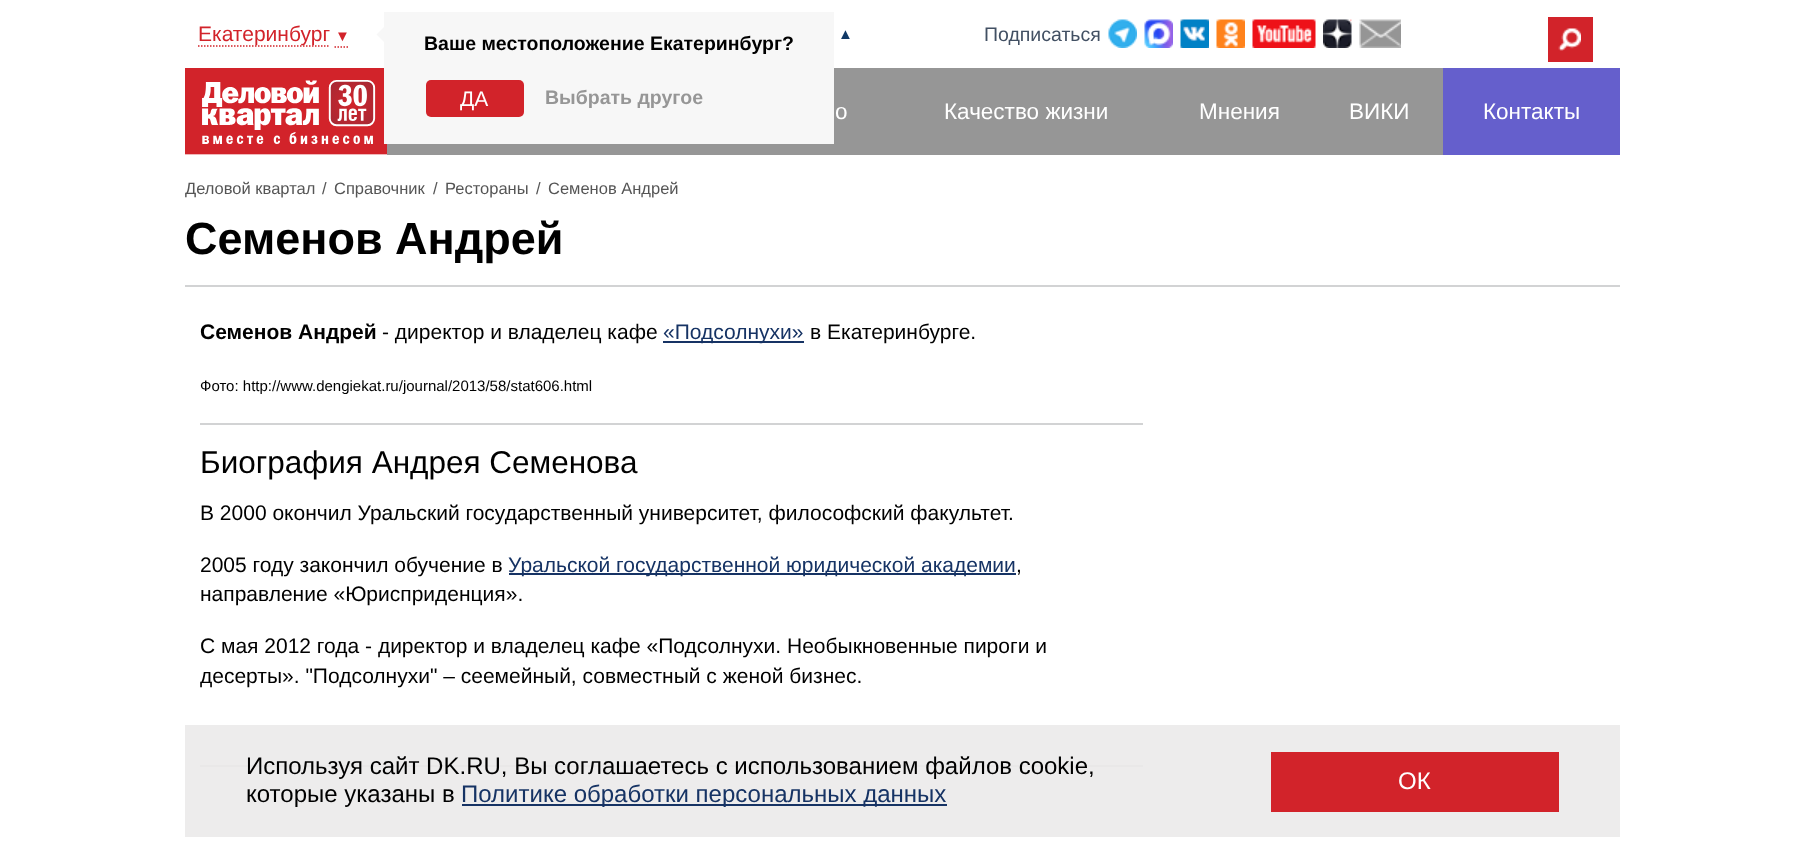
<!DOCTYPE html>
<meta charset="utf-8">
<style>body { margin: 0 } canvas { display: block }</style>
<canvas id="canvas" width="1804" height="842"></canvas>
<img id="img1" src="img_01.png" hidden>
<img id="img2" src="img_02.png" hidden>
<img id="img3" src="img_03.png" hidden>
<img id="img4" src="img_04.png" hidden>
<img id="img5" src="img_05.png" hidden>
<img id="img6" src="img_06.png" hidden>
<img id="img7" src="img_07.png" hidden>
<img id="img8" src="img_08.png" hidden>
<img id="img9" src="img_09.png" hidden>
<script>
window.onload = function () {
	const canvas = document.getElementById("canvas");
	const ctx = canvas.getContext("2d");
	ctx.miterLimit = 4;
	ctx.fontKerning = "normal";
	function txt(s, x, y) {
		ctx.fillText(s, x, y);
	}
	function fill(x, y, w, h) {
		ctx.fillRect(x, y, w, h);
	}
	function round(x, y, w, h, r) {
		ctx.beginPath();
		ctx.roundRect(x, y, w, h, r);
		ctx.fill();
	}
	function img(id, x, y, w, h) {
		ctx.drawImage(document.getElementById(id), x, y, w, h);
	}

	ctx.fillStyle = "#FFFFFF";
	fill(0, 0, 1804, 842);
	ctx.beginPath();
	ctx.moveTo(198, 46);
	ctx.lineTo(330, 46);
	ctx.strokeStyle = "#D2232A";
	ctx.lineWidth = 1.5;
	ctx.setLineDash([1.5, 1.5]);
	ctx.stroke();
	ctx.beginPath();
	ctx.moveTo(334.5, 47);
	ctx.lineTo(349.5, 47);
	ctx.stroke();
	img("img1", 1108, 19, 29, 29);
	img("img2", 1144, 19, 29, 29);
	img("img3", 1180, 19, 29, 29);
	img("img4", 1216, 19, 29, 29);
	img("img5", 1252, 19, 64, 29);
	img("img6", 1323, 19, 29, 29);
	img("img7", 1359, 19, 42, 29);
	ctx.fillStyle = "#D2232A";
	fill(1548, 17, 45, 45);
	img("img8", 1558, 28, 23, 23);
	img("img9", 185, 68, 202, 87);
	ctx.fillStyle = "#969696";
	fill(387, 68, 1056, 87);
	ctx.fillStyle = "#F7F7F7";
	fill(384, 12, 450, 132);
	ctx.beginPath();
	ctx.moveTo(384, 27);
	ctx.lineTo(384, 42);
	ctx.lineTo(376.5, 34.5);
	ctx.closePath();
	ctx.fill();
	ctx.fillStyle = "#D2232A";
	round(426, 80, 98, 37, 5);
	ctx.fillStyle = "#655FCC";
	fill(1443, 68, 177, 87);
	ctx.fillStyle = "#D2D3D4";
	fill(185, 285, 1435, 2);
	ctx.fillStyle = "#163364";
	fill(663, 341, 141, 2);
	ctx.fillStyle = "#D2D3D4";
	fill(200, 423, 943, 2);
	ctx.fillStyle = "#163364";
	fill(509, 573, 507, 2);
	ctx.fillStyle = "#D2D3D4";
	fill(200, 765, 943, 2);
	ctx.fillStyle = "rgba(235, 234, 234, 0.9)";
	fill(185, 725, 1435, 112);
	ctx.fillStyle = "#163364";
	fill(462, 804, 485, 2);
	ctx.fillStyle = "#D2232A";
	fill(1271, 752, 288, 60);
	ctx.font = "21px Liberation Sans";
	txt("Екатеринбург", 198, 41);
	ctx.font = "15px Liberation Sans";
	txt("▼", 335, 41);
	ctx.fillStyle = "#113966";
	txt("▲", 838, 39);
	ctx.font = "19.5px Liberation Sans";
	ctx.fillStyle = "#425063";
	txt("Подписаться", 984, 41);
	ctx.font = "bold 19.5px Liberation Sans";
	ctx.fillStyle = "#000000";
	txt("Ваше местоположение Екатеринбург?", 424, 50);
	ctx.font = "21px Liberation Sans";
	ctx.fillStyle = "#FFFFFF";
	txt("ДА", 460, 106);
	ctx.font = "bold 19.5px Liberation Sans";
	ctx.fillStyle = "#969696";
	txt("Выбрать другое", 545, 104);
	ctx.font = "22.5px Liberation Sans";
	ctx.fillStyle = "#FFFFFF";
	txt("о", 835, 119);
	txt("Качество жизни", 944, 119);
	txt("Мнения", 1199, 119);
	txt("ВИКИ", 1349, 119);
	txt("Контакты", 1483, 119);
	ctx.font = "16.5px Liberation Sans";
	ctx.fillStyle = "#555555";
	txt("Деловой квартал", 185, 194);
	txt("/", 322, 194);
	txt("Справочник", 334, 194);
	txt("/", 433, 194);
	txt("Рестораны", 445, 194);
	txt("/", 536, 194);
	txt("Семенов Андрей", 548, 194);
	ctx.font = "bold 45px Liberation Sans";
	ctx.fillStyle = "#000000";
	txt("Семенов Андрей", 185, 254);
	ctx.font = "bold 21px Liberation Sans";
	txt("Семенов Андрей", 200, 339);
	ctx.font = "21px Liberation Sans";
	txt("- директор и владелец кафе", 382, 339);
	ctx.fillStyle = "#163364";
	txt("«Подсолнухи»", 663, 339);
	ctx.fillStyle = "#000000";
	txt("в Екатеринбурге.", 810, 339);
	ctx.font = "15px Liberation Sans";
	txt("Фото: http://www.dengiekat.ru/journal/2013/58/stat606.html", 200, 391);
	ctx.font = "31.5px Liberation Sans";
	txt("Биография Андрея Семенова", 200, 473);
	ctx.font = "21px Liberation Sans";
	txt("В 2000 окончил Уральский государственный университет, философский факультет.", 200, 520);
	txt("2005 году закончил обучение в", 200, 572);
	ctx.fillStyle = "#163364";
	txt("Уральской государственной юридической академии", 508, 572);
	ctx.fillStyle = "#000000";
	txt(",", 1016, 572);
	txt("направление «Юрисприденция».", 200, 601);
	txt("С мая 2012 года - директор и владелец кафе «Подсолнухи. Необыкновенные пироги и", 200, 653);
	txt("десерты». \"Подсолнухи\" – сеемейный, совместный с женой бизнес.", 200, 683);
	ctx.font = "24px Liberation Sans";
	txt("Используя сайт DK.RU, Вы соглашаетесь с использованием файлов cookie,", 246, 774);
	txt("которые указаны в", 246, 802);
	ctx.fillStyle = "#163364";
	txt("Политике обработки персональных данных", 461, 802);
	ctx.fillStyle = "#FFFFFF";
	txt("ОК", 1398, 789);
};
</script>
